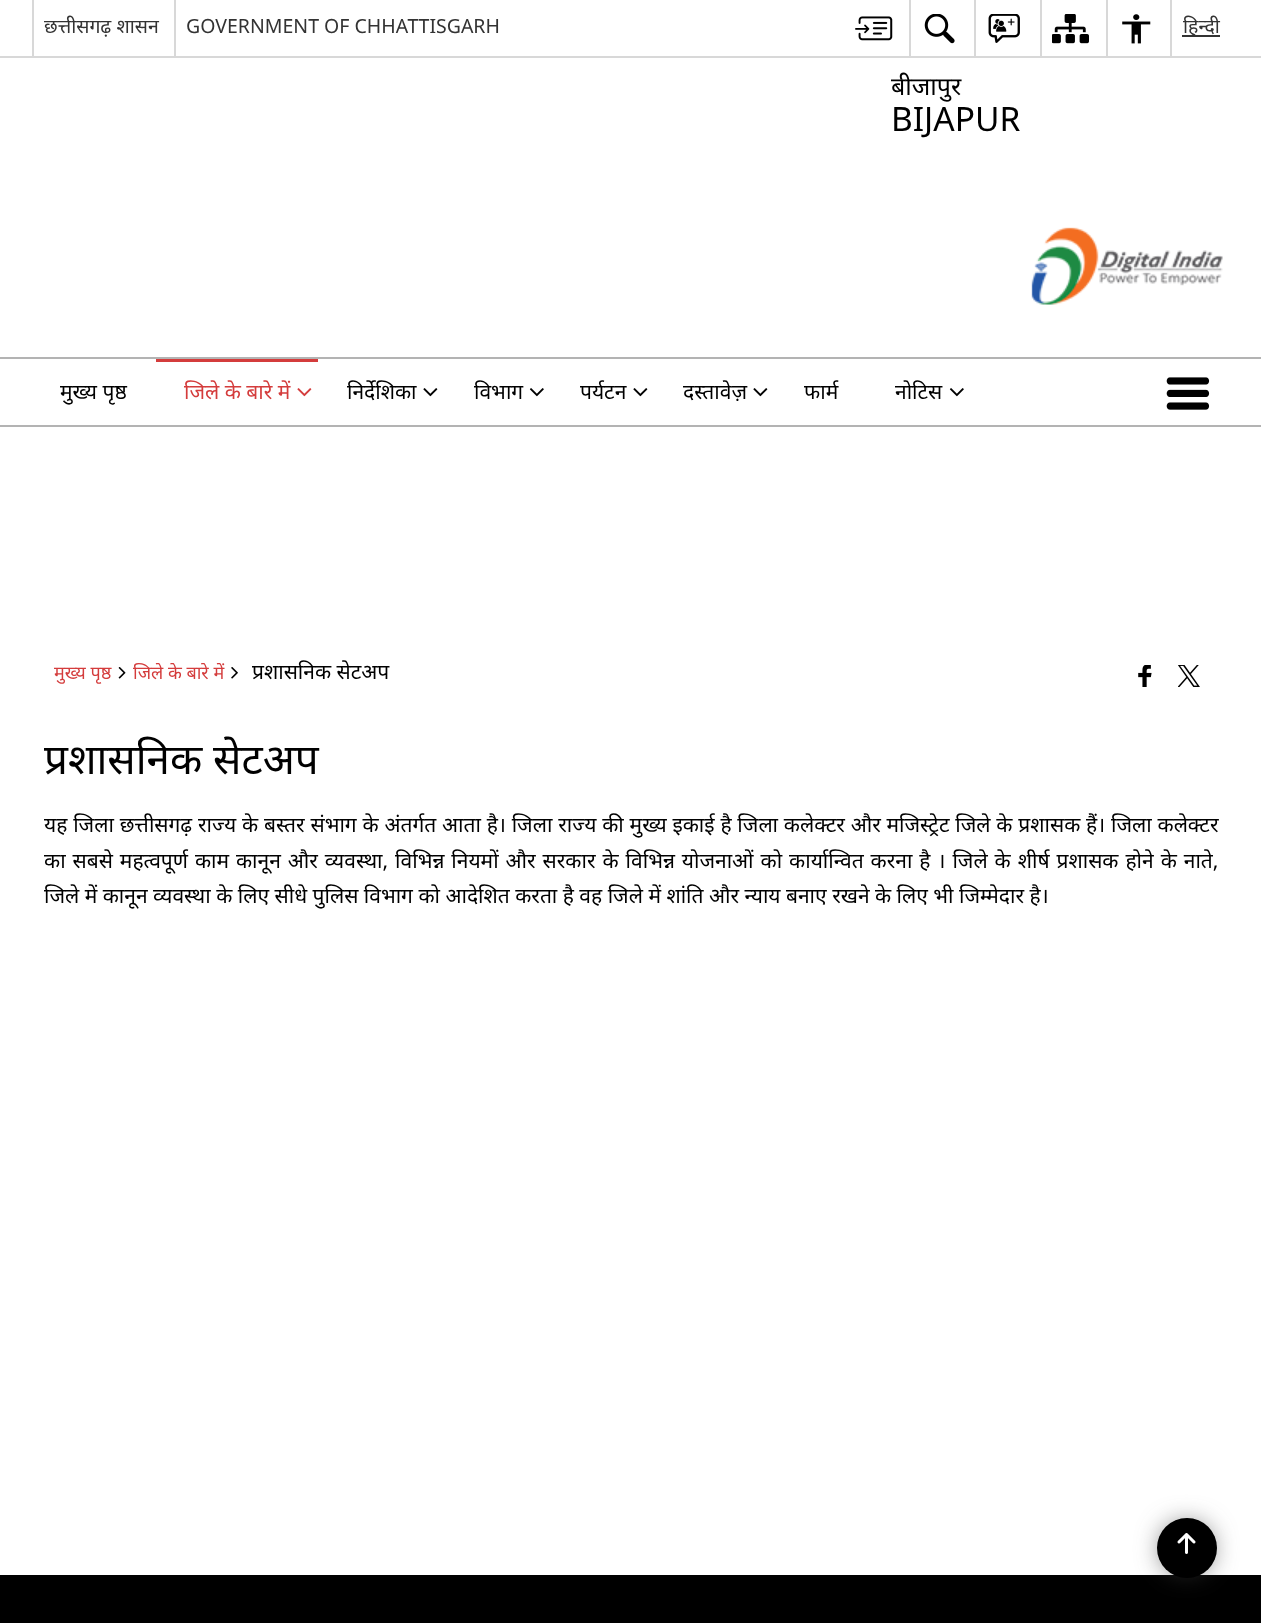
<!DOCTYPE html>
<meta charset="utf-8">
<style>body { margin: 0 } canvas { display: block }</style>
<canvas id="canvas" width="1261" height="1623"></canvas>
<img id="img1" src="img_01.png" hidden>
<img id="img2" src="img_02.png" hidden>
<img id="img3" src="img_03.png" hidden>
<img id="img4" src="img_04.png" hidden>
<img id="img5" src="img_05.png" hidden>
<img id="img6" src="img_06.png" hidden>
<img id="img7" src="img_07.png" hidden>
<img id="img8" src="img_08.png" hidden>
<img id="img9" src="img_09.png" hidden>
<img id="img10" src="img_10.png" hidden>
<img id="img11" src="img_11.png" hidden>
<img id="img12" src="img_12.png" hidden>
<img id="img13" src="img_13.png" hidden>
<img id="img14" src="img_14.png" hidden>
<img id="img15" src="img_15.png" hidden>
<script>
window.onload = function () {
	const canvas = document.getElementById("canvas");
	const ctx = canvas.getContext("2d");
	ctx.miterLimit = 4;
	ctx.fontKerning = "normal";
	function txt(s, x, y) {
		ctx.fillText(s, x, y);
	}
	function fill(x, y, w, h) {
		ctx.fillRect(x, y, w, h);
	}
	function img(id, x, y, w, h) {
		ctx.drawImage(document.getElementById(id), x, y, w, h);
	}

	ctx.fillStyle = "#FFFFFF";
	fill(0, 0, 1261, 1623);
	ctx.fillStyle = "#D8D8D8";
	fill(0, 56, 1261, 2);
	fill(32, 0, 2, 56);
	fill(174, 0, 2, 56);
	img("img1", 855, 16, 38, 25);
	fill(909, 0, 2, 56);
	img("img2", 924, 14, 31, 30);
	fill(974, 0, 2, 56);
	img("img3", 988, 14, 32, 29);
	fill(1040, 0, 2, 56);
	img("img4", 1052, 14, 37, 30);
	fill(1106, 0, 2, 56);
	img("img5", 1122, 14, 29, 30);
	fill(1170, 0, 2, 56);
	ctx.fillStyle = "#333333";
	fill(1182, 35, 38, 2);
	img("img6", 1031, 227, 192, 78);
	ctx.fillStyle = "#B3B3B3";
	fill(0, 357, 1261, 2);
	fill(0, 425, 1261, 2);
	ctx.fillStyle = "#D43C3C";
	fill(156, 359, 162, 3);
	img("img7", 297, 388, 15, 9);
	img("img8", 423, 388, 15, 9);
	img("img9", 529, 388, 15, 9);
	img("img8", 633, 388, 15, 9);
	img("img8", 753, 388, 15, 9);
	img("img9", 949, 388, 15, 9);
	img("img10", 1166, 377, 44, 33);
	img("img11", 118, 667, 8, 12);
	img("img12", 231, 667, 7, 12);
	img("img13", 1138, 665, 14, 22);
	img("img14", 1178, 665, 22, 22);
	ctx.fillStyle = "#000000";
	fill(0, 1575, 1261, 48);
	ctx.fillStyle = "#3C3C3C";
	ctx.filter = "blur(14px)";
	ctx.beginPath();
	ctx.roundRect(1164, 1526, 45, 45, 22.5);
	ctx.fill();
	ctx.filter = "none";
	ctx.fillStyle = "#000000";
	ctx.beginPath();
	ctx.arc(1187, 1548, 30, 0, Math.PI * 2);
	ctx.fill();
	img("img15", 1177, 1533, 19, 21);
	ctx.font = "19.5px Noto Sans";
	ctx.fillStyle = "#333333";
	txt("छत्तीसगढ़ शासन", 44, 33);
	ctx.font = "19.5px 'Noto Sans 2'";
	txt("GOVERNMENT OF CHHATTISGARH", 186, 33);
	ctx.font = "19.5px Noto Sans";
	txt("हिन्दी", 1183, 33);
	ctx.font = "25px Noto Sans";
	ctx.fillStyle = "#000000";
	txt("बीजापुर", 891, 95);
	ctx.font = "33.5px 'Noto Sans 2'";
	txt("BIJAPUR", 891, 131);
	ctx.font = "21px Noto Sans";
	txt("मुख्य पृष्ठ", 60, 399);
	ctx.fillStyle = "#D43C3C";
	txt("जिले के बारे में", 184, 399);
	ctx.fillStyle = "#000000";
	txt("निर्देशिका", 347, 399);
	txt("विभाग", 474, 399);
	txt("पर्यटन", 580, 399);
	txt("दस्तावेज़", 683, 399);
	txt("फार्म", 804, 399);
	txt("नोटिस", 895, 399);
	ctx.font = "18px Noto Sans";
	ctx.fillStyle = "#D43C3C";
	txt("मुख्य पृष्ठ", 54, 679);
	txt("जिले के बारे में", 133, 679);
	ctx.font = "21px Noto Sans";
	ctx.fillStyle = "#000000";
	txt("प्रशासनिक सेटअप", 252, 679);
	ctx.font = "42px Noto Sans";
	txt("प्रशासनिक सेटअप", 44, 774);
	ctx.wordSpacing = "0.35px";
	ctx.font = "21px Noto Sans";
	txt("यह जिला छत्तीसगढ़ राज्य के बस्तर संभाग के अंतर्गत आता है। जिला राज्य की मुख्य इकाई है जिला कलेक्टर और मजिस्ट्रेट जिले के प्रशासक हैं। जिला कलेक्टर", 44, 832);
	ctx.wordSpacing = "1.5px";
	txt("का सबसे महत्वपूर्ण काम कानून और व्यवस्था, विभिन्न नियमों और सरकार के विभिन्न योजनाओं को कार्यान्वित करना है । जिले के शीर्ष प्रशासक होने के नाते,", 44, 868);
	ctx.wordSpacing = "0px";
	txt("जिले में कानून व्यवस्था के लिए सीधे पुलिस विभाग को आदेशित करता है वह जिले में शांति और न्याय बनाए रखने के लिए भी जिम्मेदार है।", 44, 903);
};
</script>
